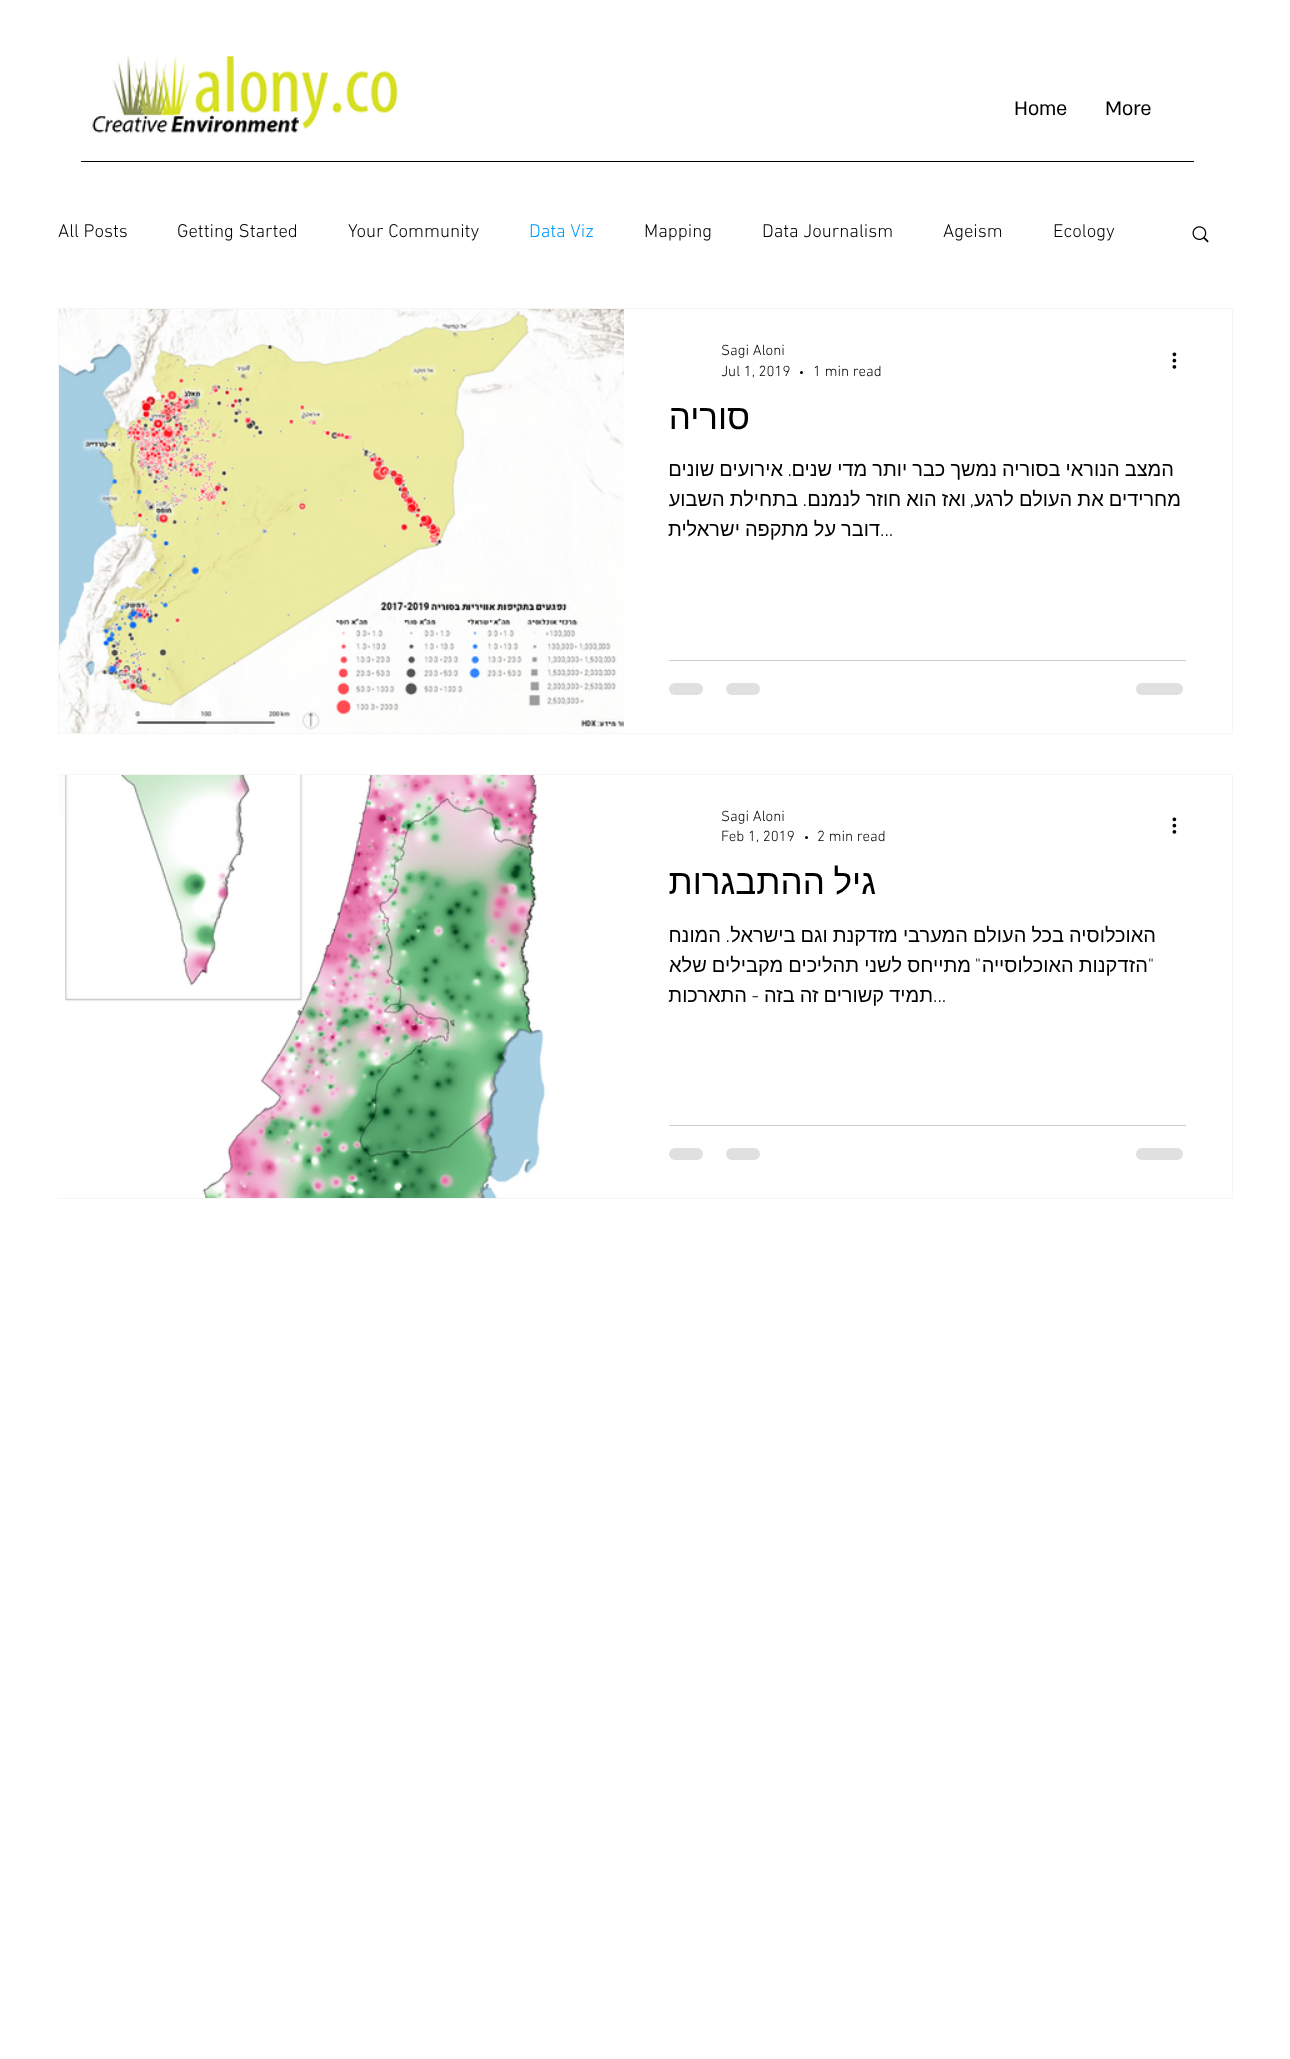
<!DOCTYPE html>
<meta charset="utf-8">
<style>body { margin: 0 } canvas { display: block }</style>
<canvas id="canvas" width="1290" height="2059"></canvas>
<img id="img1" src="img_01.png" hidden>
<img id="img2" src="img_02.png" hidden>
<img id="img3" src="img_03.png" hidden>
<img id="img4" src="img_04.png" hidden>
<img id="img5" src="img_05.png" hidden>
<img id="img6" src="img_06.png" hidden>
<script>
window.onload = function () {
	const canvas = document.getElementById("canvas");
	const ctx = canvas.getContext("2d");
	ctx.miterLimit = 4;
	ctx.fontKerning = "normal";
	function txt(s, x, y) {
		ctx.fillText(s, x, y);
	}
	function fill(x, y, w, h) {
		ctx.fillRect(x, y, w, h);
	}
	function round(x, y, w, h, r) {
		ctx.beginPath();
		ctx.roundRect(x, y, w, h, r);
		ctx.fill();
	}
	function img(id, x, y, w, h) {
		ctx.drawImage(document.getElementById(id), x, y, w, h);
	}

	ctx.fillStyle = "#FFFFFF";
	fill(0, 0, 1290, 2059);
	img("img1", 90, 55, 308, 78);
	ctx.fillStyle = "#000000";
	fill(81, 161, 1113, 1);
	img("img2", 1192, 226, 17, 17);
	ctx.strokeStyle = "#F6F6F6";
	ctx.strokeRect(58.5, 308.5, 1174, 425);
	img("img3", 1172, 352, 5, 17);
	ctx.beginPath();
	ctx.arc(801.5, 372.5, 1.5, 0, Math.PI * 2);
	ctx.fill();
	ctx.fillStyle = "#CCCCCC";
	fill(669, 660, 517, 1);
	ctx.fillStyle = "#E0E0E0";
	round(1136, 683, 47, 12, 6);
	round(726, 683, 34, 12, 6);
	round(669, 683, 34, 12, 6);
	img("img4", 59, 309, 565, 424);
	ctx.strokeRect(58.5, 774.5, 1174, 424);
	img("img3", 1172, 817, 5, 17);
	ctx.fillStyle = "#000000";
	ctx.beginPath();
	ctx.arc(806.5, 837.5, 1.5, 0, Math.PI * 2);
	ctx.fill();
	ctx.fillStyle = "#CCCCCC";
	fill(669, 1125, 517, 1);
	ctx.fillStyle = "#E0E0E0";
	round(1136, 1148, 47, 12, 6);
	round(726, 1148, 34, 12, 6);
	round(669, 1148, 34, 12, 6);
	img("img5", 65, 775, 546, 423);
	img("img6", 58, 775, 7, 423);
	ctx.font = "22.5px 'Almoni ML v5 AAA'";
	ctx.fillStyle = "#000000";
	txt("More", 1105, 115);
	txt("Home", 1014, 115);
	ctx.font = "300 18.75px 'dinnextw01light'";
	txt("Ecology", 1053, 237);
	txt("Ageism", 943, 237);
	txt("Data Journalism", 762, 237);
	txt("Mapping", 644, 237);
	ctx.fillStyle = "#0099FF";
	txt("Data Viz", 529, 237);
	ctx.fillStyle = "#000000";
	txt("Your Community", 348, 237);
	txt("Getting Started", 177, 237);
	txt("All Posts", 58, 237);
	ctx.font = "300 15px 'dinnextw01light'";
	txt("Sagi Aloni", 721, 355);
	txt("1 min read", 813, 376);
	txt("Jul 1, 2019", 721, 376);
	ctx.direction = "rtl";
	ctx.font = "35px Liberation Sans";
	txt("סוריה", 750, 429);
	ctx.wordSpacing = "-0.5px";
	ctx.font = "20px Liberation Sans";
	txt("המצב הנוראי בסוריה נמשך כבר יותר מדי שנים", 1174, 476);
	ctx.wordSpacing = "0px";
	ctx.font = "300 20px 'dinnextw01light'";
	txt(".", 792, 476);
	ctx.wordSpacing = "-0.5px";
	ctx.font = "20px Liberation Sans";
	txt("אירועים שונים", 783, 476);
	txt("מחרידים את העולם לרגע", 1181, 506);
	ctx.wordSpacing = "0px";
	ctx.font = "300 20px 'dinnextw01light'";
	txt(",", 974, 506);
	ctx.wordSpacing = "-0.5px";
	ctx.font = "20px Liberation Sans";
	txt("ואז הוא חוזר לנמנם", 966, 506);
	ctx.wordSpacing = "0px";
	ctx.font = "300 20px 'dinnextw01light'";
	txt(".", 807, 506);
	ctx.wordSpacing = "-0.5px";
	ctx.font = "20px Liberation Sans";
	txt("בתחילת השבוע", 798, 506);
	txt("דובר על מתקפה ישראלית", 880, 536);
	ctx.wordSpacing = "0px";
	ctx.direction = "ltr";
	ctx.font = "300 20px 'dinnextw01light'";
	txt("...", 880, 536);
	ctx.font = "300 15px 'dinnextw01light'";
	txt("Sagi Aloni", 721, 821);
	txt("2 min read", 817, 841);
	txt("Feb 1, 2019", 721, 841);
	ctx.wordSpacing = "-1px";
	ctx.direction = "rtl";
	ctx.font = "35px Liberation Sans";
	txt("גיל ההתבגרות", 876, 894);
	ctx.wordSpacing = "-0.5px";
	ctx.font = "20px Liberation Sans";
	txt("האוכלוסיה בכל העולם המערבי מזדקנת וגם בישראל", 1156, 942);
	ctx.wordSpacing = "0px";
	ctx.font = "300 20px 'dinnextw01light'";
	txt(".", 730, 942);
	ctx.font = "20px Liberation Sans";
	txt("המונח", 721, 942);
	ctx.font = "300 20px 'dinnextw01light'";
	txt("\"", 1154, 972);
	ctx.wordSpacing = "-0.5px";
	ctx.font = "20px Liberation Sans";
	txt("הזדקנות האוכלוסייה", 1148, 972);
	ctx.wordSpacing = "0px";
	ctx.font = "300 20px 'dinnextw01light'";
	txt("\"", 981, 972);
	ctx.wordSpacing = "-0.5px";
	ctx.font = "20px Liberation Sans";
	txt("מתייחס לשני תהליכים מקבילים שלא", 971, 972);
	txt("תמיד קשורים זה בזה", 933, 1002);
	ctx.wordSpacing = "0px";
	ctx.font = "300 20px 'dinnextw01light'";
	txt("-", 759, 1002);
	ctx.font = "20px Liberation Sans";
	txt("התארכות", 747, 1002);
	ctx.direction = "ltr";
	ctx.font = "300 20px 'dinnextw01light'";
	txt("...", 933, 1002);
};
</script>
